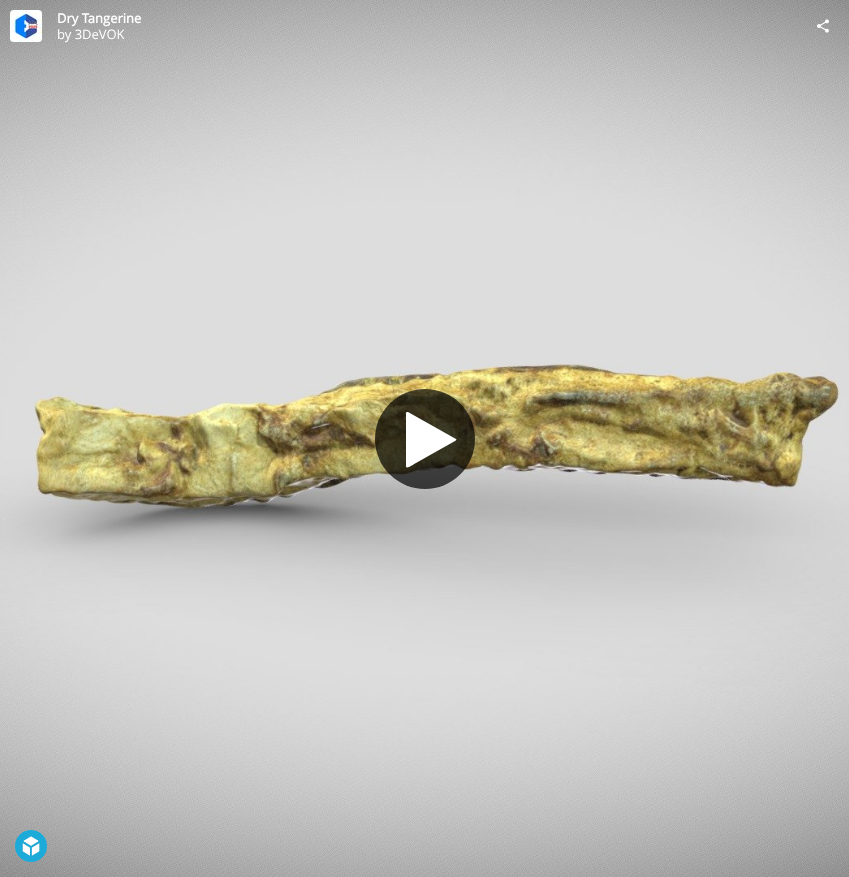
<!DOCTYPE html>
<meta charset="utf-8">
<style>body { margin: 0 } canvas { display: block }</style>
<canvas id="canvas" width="849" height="877"></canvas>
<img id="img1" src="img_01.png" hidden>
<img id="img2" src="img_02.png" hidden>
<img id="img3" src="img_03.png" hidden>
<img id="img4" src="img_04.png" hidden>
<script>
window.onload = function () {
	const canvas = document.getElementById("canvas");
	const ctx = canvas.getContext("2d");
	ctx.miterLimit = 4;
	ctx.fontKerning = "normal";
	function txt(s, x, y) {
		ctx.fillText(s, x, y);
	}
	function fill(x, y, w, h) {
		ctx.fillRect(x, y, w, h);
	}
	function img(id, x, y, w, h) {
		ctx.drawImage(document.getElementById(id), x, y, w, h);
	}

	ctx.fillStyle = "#FFFFFF";
	fill(0, 0, 849, 877);
	img("img1", 0, 0, 849, 877);
	ctx.fillStyle = "rgba(0, 0, 0, 0.7)";
	ctx.beginPath();
	ctx.arc(425, 439, 50, 0, Math.PI * 2);
	ctx.fill();
	ctx.fillStyle = "#FFFFFF";
	ctx.beginPath();
	ctx.moveTo(455, 441);
	ctx.lineTo(416, 463);
	ctx.bezierCurveTo(415, 463, 408, 469, 406, 467);
	ctx.lineTo(406, 413);
	ctx.bezierCurveTo(406, 412, 407, 412, 408, 412);
	ctx.lineTo(456, 439);
	ctx.bezierCurveTo(457, 440, 456, 440, 455, 441);
	ctx.closePath();
	ctx.fill();
	img("img2", 15, 830, 32, 32);
	img("img3", 10, 10, 32, 32);
	img("img4", 817, 19, 12, 14);
	ctx.font = "bold 13px Open Sans";
	txt("Dry Tangerine", 57, 23);
	ctx.font = "13px Open Sans";
	txt("by 3DeVOK", 57, 39);
};
</script>
